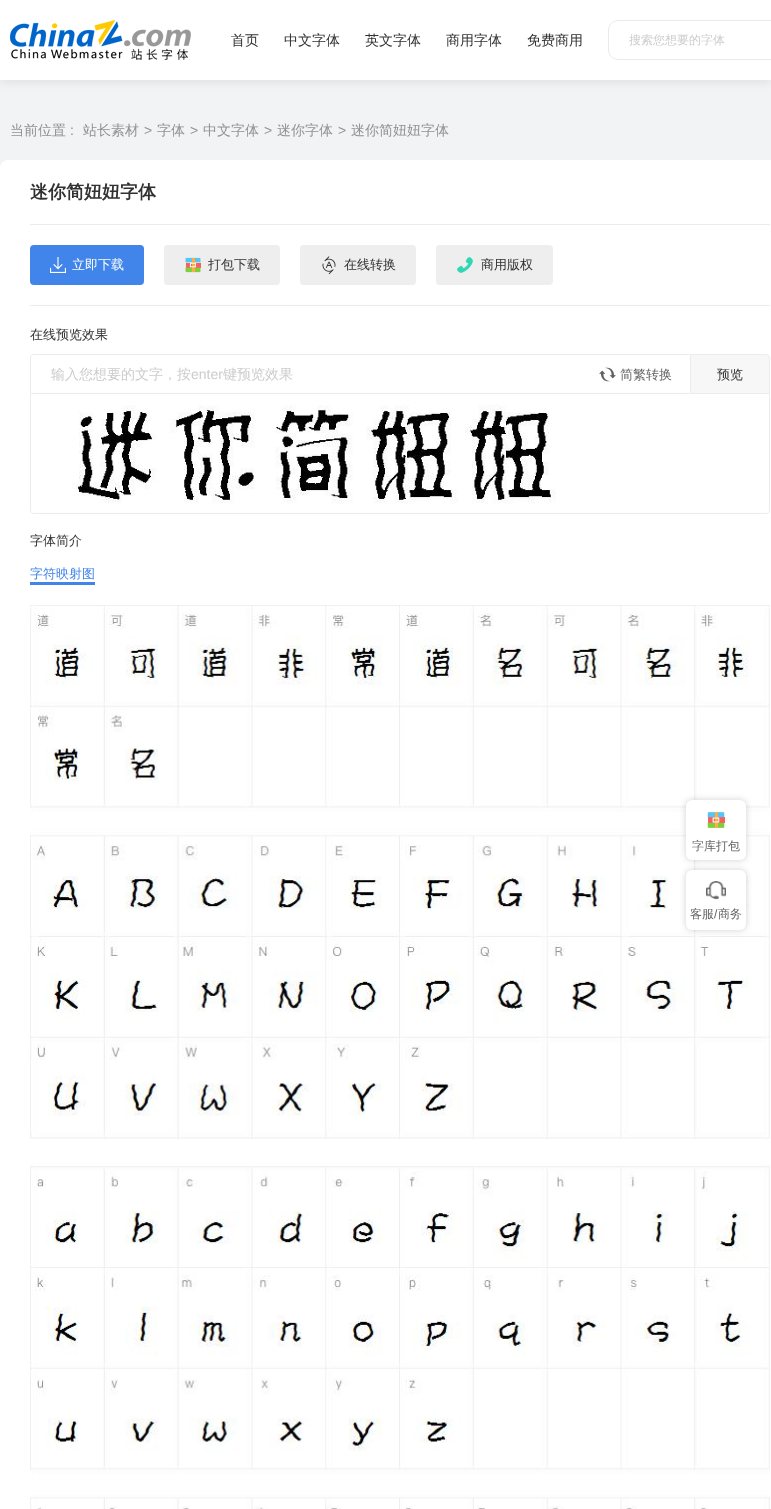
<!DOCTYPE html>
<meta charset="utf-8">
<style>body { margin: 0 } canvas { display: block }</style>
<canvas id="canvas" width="771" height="1509"></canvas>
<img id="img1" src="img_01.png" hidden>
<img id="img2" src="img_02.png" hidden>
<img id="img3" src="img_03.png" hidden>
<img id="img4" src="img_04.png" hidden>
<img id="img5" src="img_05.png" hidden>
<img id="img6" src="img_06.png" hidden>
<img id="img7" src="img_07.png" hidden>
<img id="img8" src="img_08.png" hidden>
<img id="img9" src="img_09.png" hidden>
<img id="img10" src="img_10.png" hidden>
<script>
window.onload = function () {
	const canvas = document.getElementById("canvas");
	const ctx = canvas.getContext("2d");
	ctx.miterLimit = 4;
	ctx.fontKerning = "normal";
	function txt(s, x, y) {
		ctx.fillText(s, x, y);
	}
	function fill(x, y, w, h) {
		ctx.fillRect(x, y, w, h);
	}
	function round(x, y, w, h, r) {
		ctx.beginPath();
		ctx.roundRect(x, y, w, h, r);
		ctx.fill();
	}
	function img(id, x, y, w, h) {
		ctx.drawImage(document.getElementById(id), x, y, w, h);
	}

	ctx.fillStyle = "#F1F3F5";
	fill(0, 0, 771, 1509);
	ctx.fillStyle = "rgba(204, 204, 204, 0.5)";
	ctx.filter = "blur(5px)";
	ctx.beginPath();
	ctx.rect(0, 2, 771, 80);
	ctx.fill();
	ctx.filter = "none";
	ctx.fillStyle = "#FFFFFF";
	fill(0, 0, 771, 80);
	img("img1", 10, 20, 181, 40);
	ctx.beginPath();
	ctx.moveTo(618, 20.5);
	ctx.lineTo(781.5, 20.5);
	ctx.lineTo(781.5, 59.5);
	ctx.lineTo(618, 59.5);
	ctx.bezierCurveTo(613, 59.5, 608.5, 55, 608.5, 50);
	ctx.lineTo(608.5, 30);
	ctx.bezierCurveTo(608.5, 25, 613, 20.5, 618, 20.5);
	ctx.closePath();
	ctx.strokeStyle = "#E8EAEC";
	ctx.stroke();
	round(0, 160, 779, 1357, 8);
	ctx.fillStyle = "#ECECEC";
	fill(30, 224, 740, 1);
	fill(30, 305, 740, 1);
	ctx.fillStyle = "#4185EB";
	round(30, 245, 114, 40, 4);
	img("img2", 50, 257, 16, 16);
	ctx.fillStyle = "#EEEEEE";
	round(164, 245, 116, 40, 4);
	img("img3", 185, 257, 16, 16);
	round(300, 245, 116, 40, 4);
	img("img4", 322, 256, 14, 19);
	round(436, 245, 117, 40, 4);
	img("img5", 457, 257, 16, 16);
	ctx.fillStyle = "#ECECEC";
	ctx.beginPath();
	ctx.moveTo(34, 354);
	ctx.lineTo(690, 354);
	ctx.lineTo(690, 394);
	ctx.lineTo(30, 394);
	ctx.lineTo(30, 358);
	ctx.bezierCurveTo(30, 356, 32, 354, 34, 354);
	ctx.closePath();
	ctx.moveTo(34, 355);
	ctx.lineTo(690, 355);
	ctx.lineTo(690, 393);
	ctx.lineTo(31, 393);
	ctx.lineTo(31, 358);
	ctx.bezierCurveTo(31, 356, 32, 355, 34, 355);
	ctx.closePath();
	ctx.fill("evenodd");
	img("img6", 599, 367, 17, 15);
	ctx.fillStyle = "#F7F7F7";
	ctx.beginPath();
	ctx.roundRect(690.5, 354.5, 79, 39, [0, 3.5, 0, 0]);
	ctx.fill();
	ctx.strokeStyle = "#ECECEC";
	ctx.stroke();
	ctx.fillStyle = "#ECECEC";
	ctx.beginPath();
	ctx.moveTo(30, 394);
	ctx.lineTo(770, 394);
	ctx.lineTo(770, 510);
	ctx.bezierCurveTo(770, 512, 768, 514, 766, 514);
	ctx.lineTo(34, 514);
	ctx.bezierCurveTo(32, 514, 30, 512, 30, 510);
	ctx.closePath();
	ctx.moveTo(31, 394);
	ctx.lineTo(769, 394);
	ctx.lineTo(769, 510);
	ctx.bezierCurveTo(769, 512, 768, 513, 766, 513);
	ctx.lineTo(34, 513);
	ctx.bezierCurveTo(32, 513, 31, 512, 31, 510);
	ctx.closePath();
	ctx.fill("evenodd");
	img("img7", 72, 405, 484, 99);
	ctx.fillStyle = "#4185EB";
	fill(30, 582, 65, 3);
	img("img8", 30, 605, 740, 904);
	ctx.fillStyle = "rgba(32, 15, 10, 0.2)";
	ctx.filter = "blur(3px)";
	ctx.beginPath();
	ctx.roundRect(686, 800, 60, 60, 6);
	ctx.fill();
	ctx.filter = "none";
	ctx.fillStyle = "#FFFFFF";
	round(686, 800, 60, 60, 6);
	img("img9", 707, 812, 18, 16);
	ctx.fillStyle = "rgba(32, 15, 10, 0.2)";
	ctx.filter = "blur(3px)";
	ctx.beginPath();
	ctx.roundRect(686, 870, 60, 60, 6);
	ctx.fill();
	ctx.filter = "none";
	ctx.fillStyle = "#FFFFFF";
	round(686, 870, 60, 60, 6);
	img("img10", 706, 881, 20, 19);
	ctx.font = "500 14px WenQuanYi Zen Hei";
	ctx.fillStyle = "#313131";
	txt("首页", 231, 45);
	txt("中文字体", 284, 45);
	txt("英文字体", 365, 45);
	txt("商用字体", 446, 45);
	txt("免费商用", 527, 45);
	ctx.font = "500 12px WenQuanYi Zen Hei";
	ctx.fillStyle = "#CCCCCC";
	txt("搜索您想要的字体", 629, 44);
	ctx.font = "500 14px WenQuanYi Zen Hei";
	ctx.fillStyle = "#919191";
	txt("当前位置", 10, 135);
	ctx.font = "14px Liberation Sans";
	txt(":", 70, 135);
	ctx.font = "500 14px WenQuanYi Zen Hei";
	txt("站长素材", 83, 135);
	ctx.font = "14px Liberation Sans";
	txt(">", 144, 135);
	ctx.font = "500 14px WenQuanYi Zen Hei";
	txt("字体", 157, 135);
	ctx.font = "14px Liberation Sans";
	txt(">", 190, 135);
	ctx.font = "500 14px WenQuanYi Zen Hei";
	txt("中文字体", 203, 135);
	ctx.font = "14px Liberation Sans";
	txt(">", 264, 135);
	ctx.font = "500 14px WenQuanYi Zen Hei";
	txt("迷你字体", 277, 135);
	ctx.font = "14px Liberation Sans";
	txt(">", 338, 135);
	ctx.font = "500 14px WenQuanYi Zen Hei";
	txt("迷你简妞妞字体", 351, 135);
	ctx.font = "bold 18px WenQuanYi Zen Hei";
	ctx.fillStyle = "#313131";
	txt("迷你简妞妞字体", 30, 198);
	ctx.font = "500 13px WenQuanYi Zen Hei";
	ctx.fillStyle = "#FFFFFF";
	txt("立即下载", 72, 269);
	ctx.fillStyle = "#313131";
	txt("打包下载", 208, 269);
	txt("在线转换", 344, 269);
	txt("商用版权", 481, 269);
	txt("在线预览效果", 30, 339);
	ctx.font = "500 14px WenQuanYi Zen Hei";
	ctx.fillStyle = "#CCCCCC";
	txt("输入您想要的文字，按", 51, 379);
	ctx.font = "14px Liberation Sans";
	txt("enter", 191, 379);
	ctx.font = "500 14px WenQuanYi Zen Hei";
	txt("键预览效果", 223, 379);
	ctx.font = "500 13px WenQuanYi Zen Hei";
	ctx.fillStyle = "#616161";
	txt("简繁转换", 620, 379);
	ctx.fillStyle = "#313131";
	txt("预览", 717, 379);
	txt("字体简介", 30, 545);
	ctx.fillStyle = "#4185EB";
	txt("字符映射图", 30, 578);
	ctx.font = "500 12px WenQuanYi Zen Hei";
	ctx.fillStyle = "#616161";
	txt("字库打包", 692, 850);
	txt("客服", 690, 918);
	ctx.font = "12px Liberation Sans";
	txt("/", 714, 918);
	ctx.font = "500 12px WenQuanYi Zen Hei";
	txt("商务", 718, 918);
};
</script>
